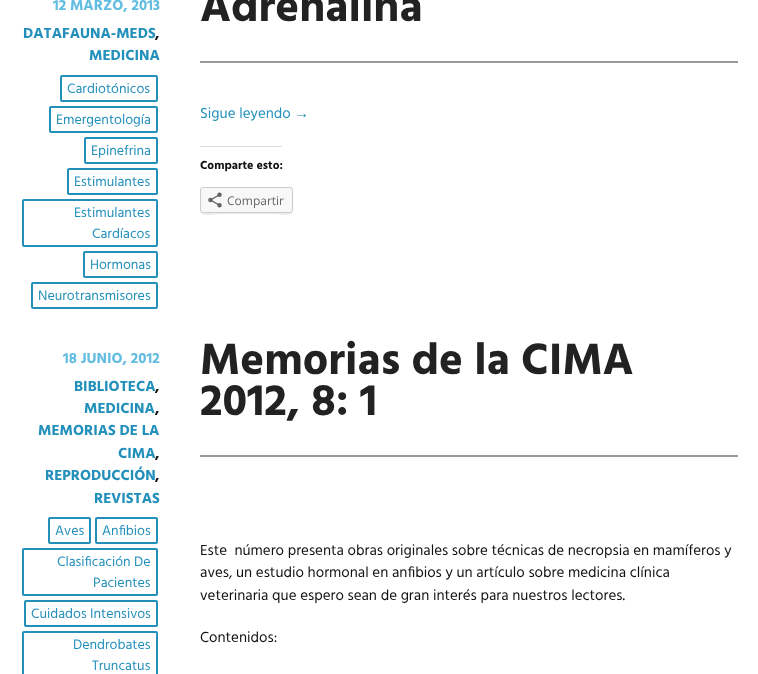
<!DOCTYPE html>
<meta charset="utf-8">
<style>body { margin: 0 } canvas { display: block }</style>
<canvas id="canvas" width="758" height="674"></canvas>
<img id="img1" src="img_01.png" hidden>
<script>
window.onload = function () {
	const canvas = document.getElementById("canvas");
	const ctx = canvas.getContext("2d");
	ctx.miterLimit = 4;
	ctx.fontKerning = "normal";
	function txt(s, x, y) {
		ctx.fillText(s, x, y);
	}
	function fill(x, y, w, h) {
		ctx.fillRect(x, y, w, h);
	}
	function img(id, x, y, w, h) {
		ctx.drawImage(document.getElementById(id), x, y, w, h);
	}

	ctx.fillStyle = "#FFFFFF";
	fill(0, 0, 758, 674);
	ctx.beginPath();
	ctx.roundRect(61, 76, 96, 25, 1);
	ctx.strokeStyle = "#2390BB";
	ctx.lineWidth = 2;
	ctx.stroke();
	ctx.beginPath();
	ctx.roundRect(50, 107, 107, 25, 1);
	ctx.stroke();
	ctx.beginPath();
	ctx.roundRect(85, 138, 72, 25, 1);
	ctx.stroke();
	ctx.beginPath();
	ctx.roundRect(68, 169, 89, 25, 1);
	ctx.stroke();
	ctx.beginPath();
	ctx.roundRect(23, 200, 134, 46, 1);
	ctx.stroke();
	ctx.beginPath();
	ctx.roundRect(84, 252, 73, 25, 1);
	ctx.stroke();
	ctx.beginPath();
	ctx.roundRect(32, 283, 125, 25, 1);
	ctx.stroke();
	ctx.fillStyle = "#999999";
	fill(200, 61, 538, 2);
	ctx.fillStyle = "#DCDCDE";
	fill(200, 146, 82, 1);
	ctx.fillStyle = "#EBEBEB";
	ctx.beginPath();
	ctx.moveTo(200, 210);
	ctx.bezierCurveTo(200, 218, 214, 214, 218, 214);
	ctx.lineTo(276, 214);
	ctx.bezierCurveTo(279, 214, 293, 218, 293, 210);
	ctx.bezierCurveTo(293, 212, 292, 213, 290, 213);
	ctx.lineTo(203, 213);
	ctx.bezierCurveTo(201, 213, 200, 212, 200, 210);
	ctx.closePath();
	ctx.fill();
	ctx.fillStyle = "#F8F8F8";
	ctx.beginPath();
	ctx.roundRect(200.5, 187.5, 92, 25, 2.5);
	ctx.fill();
	ctx.strokeStyle = "#CCCCCC";
	ctx.lineWidth = 1;
	ctx.stroke();
	img("img1", 208, 192, 14, 16);
	ctx.beginPath();
	ctx.roundRect(49, 518, 41, 25, 1);
	ctx.strokeStyle = "#2390BB";
	ctx.lineWidth = 2;
	ctx.stroke();
	ctx.beginPath();
	ctx.roundRect(96, 518, 61, 25, 1);
	ctx.stroke();
	ctx.beginPath();
	ctx.roundRect(23, 549, 134, 46, 1);
	ctx.stroke();
	ctx.beginPath();
	ctx.roundRect(25, 601, 132, 25, 1);
	ctx.stroke();
	ctx.beginPath();
	ctx.roundRect(23, 632, 134, 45, 1);
	ctx.stroke();
	ctx.fillStyle = "#999999";
	fill(200, 455, 538, 2);
	ctx.font = "bold 15px Hind";
	ctx.fillStyle = "#63BDE1";
	txt("12 MARZO, 2013", 53, 10);
	ctx.fillStyle = "#2390BB";
	txt("DATAFAUNA-MEDS", 23, 38);
	ctx.fillStyle = "#111111";
	txt(",", 155, 38);
	ctx.fillStyle = "#2390BB";
	txt("MEDICINA", 89, 60);
	ctx.font = "14px Hind";
	txt("Cardiotónicos", 67, 93);
	txt("Emergentología", 56, 124);
	txt("Epinefrina", 91, 155);
	txt("Estimulantes", 74, 186);
	txt("Estimulantes", 74, 217);
	txt("Cardíacos", 92, 238);
	txt("Hormonas", 90, 269);
	txt("Neurotransmisores", 38, 300);
	ctx.font = "bold 45px Hind";
	ctx.fillStyle = "#222222";
	txt("Adrenalina", 200, 21);
	ctx.font = "15px Hind";
	ctx.fillStyle = "#2390BB";
	txt("Sigue leyendo", 200, 118);
	ctx.font = "15px Liberation Sans";
	txt("→", 294, 118);
	ctx.font = "bold 12px Hind";
	ctx.fillStyle = "#111111";
	txt("Comparte esto:", 200, 169);
	ctx.font = "12px Open Sans";
	ctx.fillStyle = "#656565";
	txt("Compartir", 227, 205);
	ctx.font = "bold 15px Hind";
	ctx.fillStyle = "#63BDE1";
	txt("18 JUNIO, 2012", 63, 363);
	ctx.fillStyle = "#2390BB";
	txt("BIBLIOTECA", 74, 391);
	ctx.fillStyle = "#111111";
	txt(",", 155, 391);
	ctx.fillStyle = "#2390BB";
	txt("MEDICINA", 84, 413);
	ctx.fillStyle = "#111111";
	txt(",", 155, 413);
	ctx.fillStyle = "#2390BB";
	txt("MEMORIAS DE LA", 38, 435);
	txt("CIMA", 118, 458);
	ctx.fillStyle = "#111111";
	txt(",", 155, 458);
	ctx.fillStyle = "#2390BB";
	txt("REPRODUCCIÓN", 45, 480);
	ctx.fillStyle = "#111111";
	txt(",", 155, 480);
	ctx.fillStyle = "#2390BB";
	txt("REVISTAS", 94, 503);
	ctx.font = "14px Hind";
	txt("Aves", 55, 535);
	txt("Anfibios", 102, 535);
	txt("Clasificación De", 57, 566);
	txt("Pacientes", 93, 587);
	txt("Cuidados Intensivos", 31, 618);
	txt("Dendrobates", 73, 649);
	txt("Truncatus", 92, 670);
	ctx.font = "bold 45px Hind";
	ctx.fillStyle = "#222222";
	txt("Memorias de la CIMA", 200, 374);
	txt("2012, 8: 1", 200, 415);
	ctx.font = "15px Hind";
	ctx.fillStyle = "#111111";
	txt("Este  número presenta obras originales sobre técnicas de necropsia en mamíferos y", 200, 555);
	txt("aves, un estudio hormonal en anfibios y un artículo sobre medicina clínica", 200, 577);
	txt("veterinaria que espero sean de gran interés para nuestros lectores.", 200, 600);
	txt("Contenidos:", 200, 642);
};
</script>
